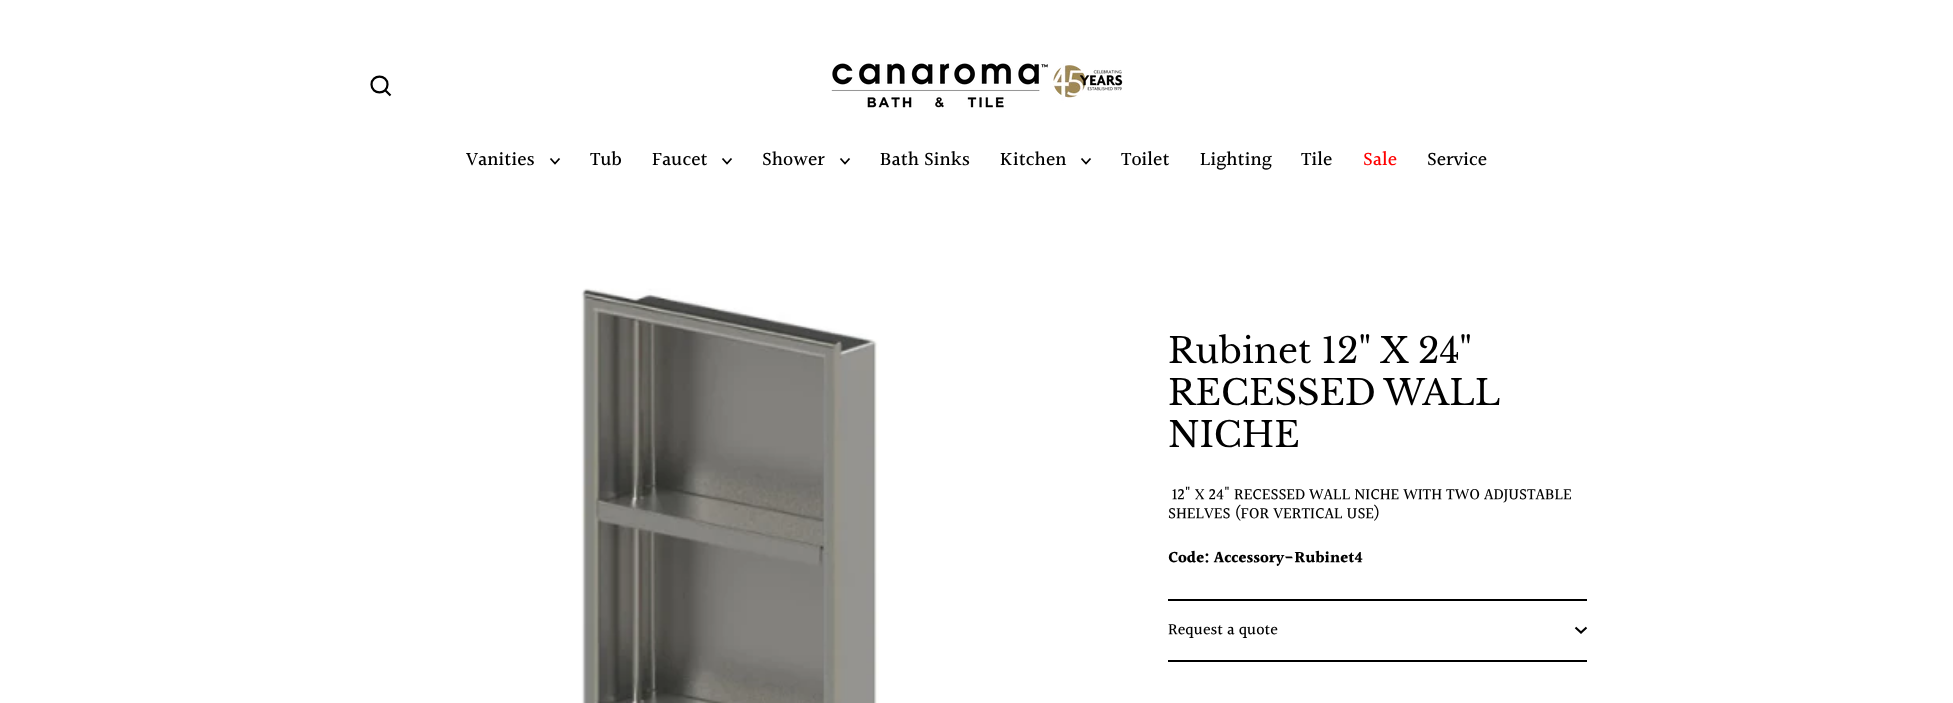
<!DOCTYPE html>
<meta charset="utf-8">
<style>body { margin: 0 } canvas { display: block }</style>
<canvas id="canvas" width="1953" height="703"></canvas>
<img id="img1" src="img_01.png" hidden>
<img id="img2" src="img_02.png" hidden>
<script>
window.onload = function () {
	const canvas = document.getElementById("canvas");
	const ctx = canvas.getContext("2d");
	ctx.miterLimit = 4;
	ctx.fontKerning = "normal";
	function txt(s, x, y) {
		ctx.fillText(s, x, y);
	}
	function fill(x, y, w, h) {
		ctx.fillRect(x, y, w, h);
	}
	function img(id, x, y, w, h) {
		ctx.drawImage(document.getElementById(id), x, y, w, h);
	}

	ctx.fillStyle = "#FFFFFF";
	fill(0, 0, 1953, 703);
	ctx.beginPath();
	ctx.moveTo(387.5, 84.5);
	ctx.bezierCurveTo(387.5, 95, 371.5, 95, 371.5, 84.5);
	ctx.bezierCurveTo(371.5, 74, 387.5, 74, 387.5, 84.5);
	ctx.closePath();
	ctx.moveTo(390.5, 95.5);
	ctx.lineTo(385.5, 90.5);
	ctx.strokeStyle = "#000000";
	ctx.lineWidth = 2.2;
	ctx.stroke();
	img("img1", 831, 63, 292, 45);
	ctx.beginPath();
	ctx.moveTo(550.5, 158.5);
	ctx.lineTo(555, 163.5);
	ctx.lineTo(559.5, 158.5);
	ctx.lineWidth = 1.8;
	ctx.stroke();
	ctx.beginPath();
	ctx.moveTo(722.5, 158.5);
	ctx.lineTo(727, 163.5);
	ctx.lineTo(731.5, 158.5);
	ctx.stroke();
	ctx.beginPath();
	ctx.moveTo(840.5, 158.5);
	ctx.lineTo(845, 163.5);
	ctx.lineTo(849.5, 158.5);
	ctx.stroke();
	ctx.beginPath();
	ctx.moveTo(1081.5, 158.5);
	ctx.lineTo(1086, 163.5);
	ctx.lineTo(1090.5, 158.5);
	ctx.stroke();
	img("img2", 581, 288, 298, 415);
	ctx.fillStyle = "#000000";
	fill(1168, 660, 419, 2);
	fill(1168, 599, 419, 2);
	ctx.beginPath();
	ctx.moveTo(1575.5, 627.5);
	ctx.lineTo(1581, 632.5);
	ctx.lineTo(1586.5, 627.5);
	ctx.lineWidth = 2.1;
	ctx.stroke();
	ctx.font = "500 19.5px Halant";
	txt("Vanities", 466, 166);
	txt("Tub", 590, 166);
	txt("Faucet", 652, 166);
	txt("Shower", 762, 166);
	txt("Bath Sinks", 880, 166);
	txt("Kitchen", 1000, 166);
	txt("Toilet", 1121, 166);
	txt("Lighting", 1200, 166);
	txt("Tile", 1301, 166);
	ctx.fillStyle = "#FF0000";
	txt("Sale", 1363, 166);
	ctx.fillStyle = "#000000";
	txt("Service", 1427, 166);
	ctx.font = "35px Libre Baskerville";
	txt("Rubinet 12\" X 24\"", 1168, 363);
	ctx.wordSpacing = "-1px";
	txt("RECESSED WALL", 1168, 405);
	ctx.wordSpacing = "0px";
	txt("NICHE", 1168, 447);
	ctx.font = "500 16px Halant";
	txt("12\" X 24\" RECESSED WALL NICHE WITH TWO ADJUSTABLE", 1172, 500);
	txt("SHELVES (FOR VERTICAL USE)", 1168, 519);
	ctx.font = "bold 16px Halant";
	txt("Code: Accessory-Rubinet4", 1168, 563);
	ctx.font = "500 16px Halant";
	txt("Request a quote", 1168, 635);
};
</script>
